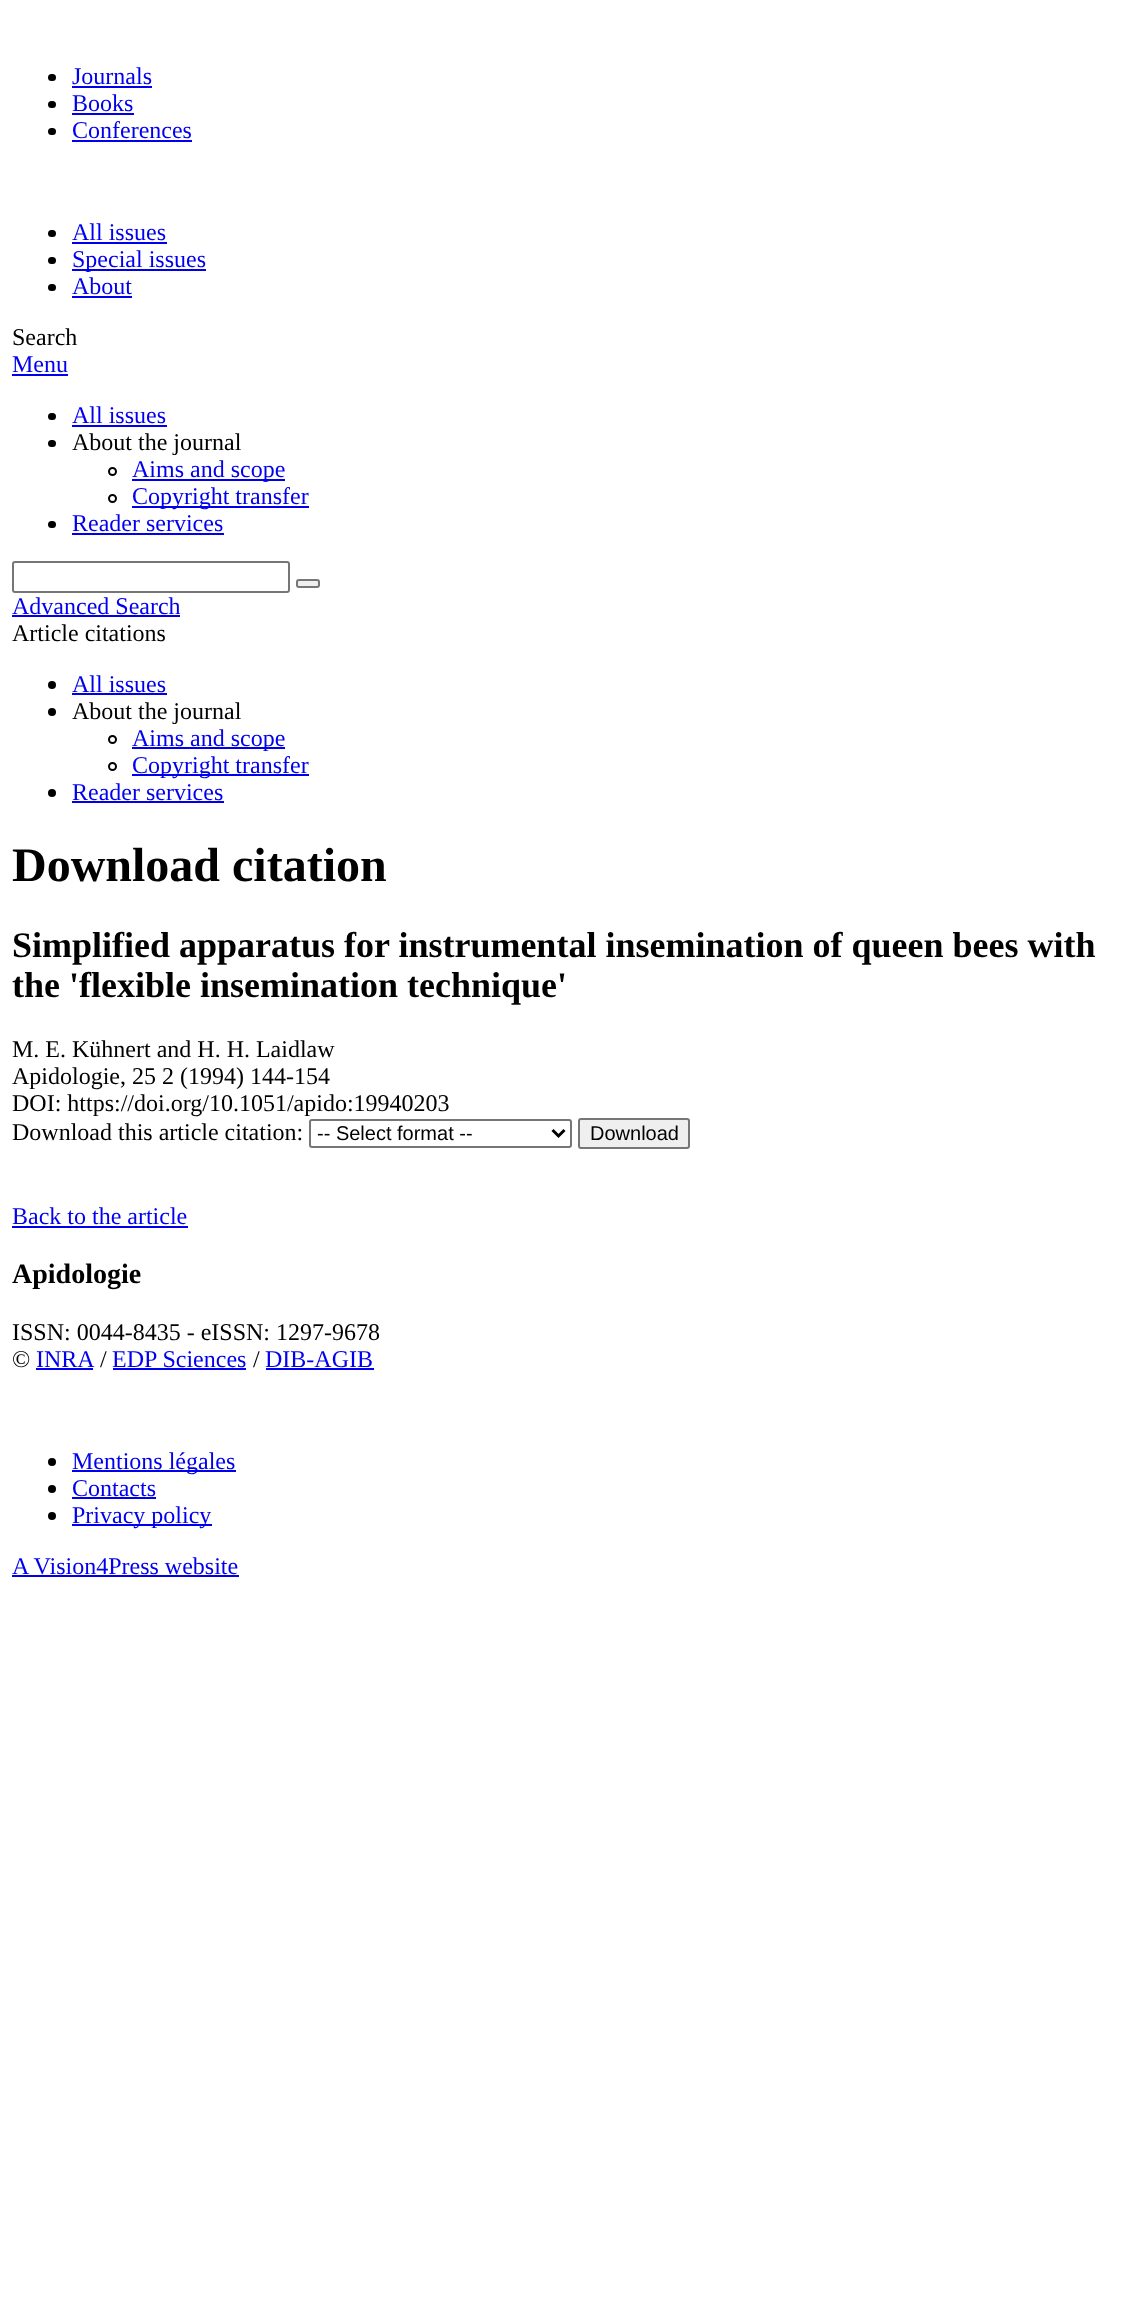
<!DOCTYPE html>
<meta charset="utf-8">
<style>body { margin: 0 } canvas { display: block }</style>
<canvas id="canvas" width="1137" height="2322"></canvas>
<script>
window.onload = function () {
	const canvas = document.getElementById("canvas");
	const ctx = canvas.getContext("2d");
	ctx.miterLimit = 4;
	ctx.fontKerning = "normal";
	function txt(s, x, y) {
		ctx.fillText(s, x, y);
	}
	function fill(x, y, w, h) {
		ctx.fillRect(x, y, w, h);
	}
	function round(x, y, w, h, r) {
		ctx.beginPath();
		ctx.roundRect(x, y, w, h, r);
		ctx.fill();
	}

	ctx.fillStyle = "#FFFFFF";
	fill(0, 0, 1137, 2322);
	ctx.fillStyle = "#000000";
	round(48, 74, 8, 7, 3.5);
	ctx.fillStyle = "#0000EE";
	fill(72, 86, 80, 2);
	ctx.fillStyle = "#000000";
	round(48, 101, 8, 7, 3.5);
	ctx.fillStyle = "#0000EE";
	fill(72, 113, 62, 2);
	ctx.fillStyle = "#000000";
	round(48, 128, 8, 7, 3.5);
	ctx.fillStyle = "#0000EE";
	fill(72, 140, 120, 2);
	ctx.fillStyle = "#000000";
	round(48, 230, 8, 7, 3.5);
	ctx.fillStyle = "#0000EE";
	fill(72, 242, 95, 2);
	ctx.fillStyle = "#000000";
	round(48, 257, 8, 7, 3.5);
	ctx.fillStyle = "#0000EE";
	fill(72, 269, 134, 2);
	ctx.fillStyle = "#000000";
	round(48, 284, 8, 7, 3.5);
	ctx.fillStyle = "#0000EE";
	fill(72, 296, 60, 2);
	fill(12, 374, 56, 2);
	ctx.fillStyle = "#000000";
	round(48, 413, 8, 7, 3.5);
	ctx.fillStyle = "#0000EE";
	fill(72, 425, 95, 2);
	ctx.fillStyle = "#000000";
	round(48, 440, 8, 7, 3.5);
	ctx.beginPath();
	ctx.arc(112.5, 471.5, 3.5, 0, Math.PI * 2);
	ctx.strokeStyle = "#000000";
	ctx.lineWidth = 2;
	ctx.stroke();
	ctx.fillStyle = "#0000EE";
	fill(132, 479, 153, 2);
	ctx.beginPath();
	ctx.arc(112.5, 498.5, 3.5, 0, Math.PI * 2);
	ctx.stroke();
	fill(132, 506, 177, 2);
	ctx.fillStyle = "#000000";
	round(48, 521, 8, 7, 3.5);
	ctx.fillStyle = "#0000EE";
	fill(72, 533, 152, 2);
	ctx.beginPath();
	ctx.roundRect(13, 562, 276, 30, 2);
	ctx.strokeStyle = "#767676";
	ctx.stroke();
	ctx.fillStyle = "#EFEFEF";
	ctx.beginPath();
	ctx.roundRect(297, 580, 22, 7, 2);
	ctx.fill();
	ctx.stroke();
	ctx.fillStyle = "#0000EE";
	fill(12, 615, 168, 2);
	ctx.fillStyle = "#000000";
	ctx.beginPath();
	ctx.arc(52, 685, 4, 0, Math.PI * 2);
	ctx.fill();
	ctx.fillStyle = "#0000EE";
	fill(72, 693, 95, 2);
	ctx.fillStyle = "#000000";
	ctx.beginPath();
	ctx.arc(52, 712, 4, 0, Math.PI * 2);
	ctx.fill();
	ctx.beginPath();
	ctx.arc(112.5, 739.5, 3.5, 0, Math.PI * 2);
	ctx.strokeStyle = "#000000";
	ctx.stroke();
	ctx.fillStyle = "#0000EE";
	fill(132, 747, 153, 2);
	ctx.beginPath();
	ctx.arc(112.5, 766.5, 3.5, 0, Math.PI * 2);
	ctx.stroke();
	fill(132, 774, 177, 2);
	ctx.fillStyle = "#000000";
	ctx.beginPath();
	ctx.arc(52, 793, 4, 0, Math.PI * 2);
	ctx.fill();
	ctx.fillStyle = "#0000EE";
	fill(72, 801, 152, 2);
	ctx.beginPath();
	ctx.roundRect(310, 1120, 261, 27, 2);
	ctx.strokeStyle = "#767676";
	ctx.stroke();
	ctx.beginPath();
	ctx.moveTo(552.5, 1130);
	ctx.lineTo(558.5, 1136);
	ctx.lineTo(564.5, 1130);
	ctx.strokeStyle = "#000000";
	ctx.lineWidth = 3;
	ctx.stroke();
	ctx.fillStyle = "#EFEFEF";
	ctx.beginPath();
	ctx.roundRect(579, 1119, 110, 29, 2);
	ctx.fill();
	ctx.strokeStyle = "#767676";
	ctx.lineWidth = 2;
	ctx.stroke();
	ctx.fillStyle = "#0000EE";
	fill(12, 1226, 176, 2);
	fill(36, 1368, 57, 2);
	fill(113, 1368, 133, 2);
	fill(266, 1368, 108, 2);
	ctx.fillStyle = "#000000";
	ctx.beginPath();
	ctx.arc(52, 1462, 4, 0, Math.PI * 2);
	ctx.fill();
	ctx.fillStyle = "#0000EE";
	fill(72, 1470, 164, 2);
	ctx.fillStyle = "#000000";
	ctx.beginPath();
	ctx.arc(52, 1489, 4, 0, Math.PI * 2);
	ctx.fill();
	ctx.fillStyle = "#0000EE";
	fill(72, 1497, 84, 2);
	ctx.fillStyle = "#000000";
	ctx.beginPath();
	ctx.arc(52, 1516, 4, 0, Math.PI * 2);
	ctx.fill();
	ctx.fillStyle = "#0000EE";
	fill(72, 1524, 140, 2);
	fill(12, 1575, 227, 2);
	ctx.font = "24px Liberation Serif";
	txt("Journals", 72, 84);
	txt("Books", 72, 111);
	txt("Conferences", 72, 138);
	txt("All issues", 72, 240);
	txt("Special issues", 72, 267);
	txt("About", 72, 294);
	ctx.fillStyle = "#000000";
	txt("Search", 12, 345);
	ctx.fillStyle = "#0000EE";
	txt("Menu", 12, 372);
	txt("All issues", 72, 423);
	ctx.fillStyle = "#000000";
	txt("About the journal", 72, 450);
	ctx.fillStyle = "#0000EE";
	txt("Aims and scope", 132, 477);
	txt("Copyright transfer", 132, 504);
	txt("Reader services", 72, 531);
	txt("Advanced Search", 12, 614);
	ctx.fillStyle = "#000000";
	txt("Article citations", 12, 641);
	ctx.fillStyle = "#0000EE";
	txt("All issues", 72, 692);
	ctx.fillStyle = "#000000";
	txt("About the journal", 72, 719);
	ctx.fillStyle = "#0000EE";
	txt("Aims and scope", 132, 746);
	txt("Copyright transfer", 132, 773);
	txt("Reader services", 72, 800);
	ctx.font = "bold 48px Liberation Serif";
	ctx.fillStyle = "#000000";
	txt("Download citation", 12, 881);
	ctx.font = "bold 36px Liberation Serif";
	txt("Simplified apparatus for instrumental insemination of queen bees with", 12, 957);
	txt("the 'flexible insemination technique'", 12, 997);
	ctx.font = "24px Liberation Serif";
	txt("M. E. Kühnert and H. H. Laidlaw", 12, 1057);
	txt("Apidologie, 25 2 (1994) 144-154", 12, 1084);
	txt("DOI: https://doi.org/10.1051/apido:19940203", 12, 1111);
	txt("Download this article citation:", 12, 1140);
	ctx.font = "20px Liberation Sans";
	txt("-- Select format --", 317, 1140);
	txt("Download", 590, 1140);
	ctx.font = "24px Liberation Serif";
	ctx.fillStyle = "#0000EE";
	txt("Back to the article", 12, 1224);
	ctx.font = "bold 28px Liberation Serif";
	ctx.fillStyle = "#000000";
	txt("Apidologie", 12, 1283);
	ctx.font = "24px Liberation Serif";
	txt("ISSN: 0044-8435 - eISSN: 1297-9678", 12, 1340);
	txt("©", 12, 1367);
	ctx.fillStyle = "#0000EE";
	txt("INRA", 36, 1367);
	ctx.fillStyle = "#000000";
	txt("/", 100, 1367);
	ctx.fillStyle = "#0000EE";
	txt("EDP Sciences", 112, 1367);
	ctx.fillStyle = "#000000";
	txt("/", 253, 1367);
	ctx.fillStyle = "#0000EE";
	txt("DIB-AGIB", 265, 1367);
	txt("Mentions légales", 72, 1469);
	txt("Contacts", 72, 1496);
	txt("Privacy policy", 72, 1523);
	txt("A Vision4Press website", 12, 1574);
};
</script>
